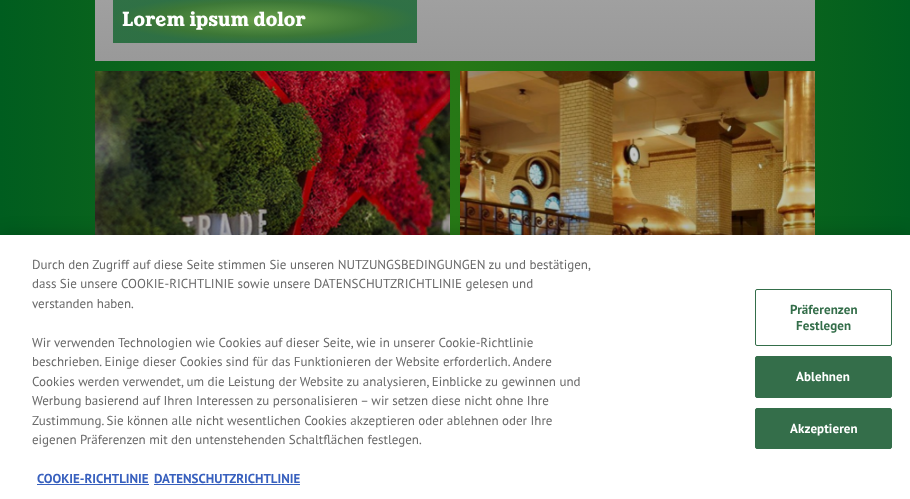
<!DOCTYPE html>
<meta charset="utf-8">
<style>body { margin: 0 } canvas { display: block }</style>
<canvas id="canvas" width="910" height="499"></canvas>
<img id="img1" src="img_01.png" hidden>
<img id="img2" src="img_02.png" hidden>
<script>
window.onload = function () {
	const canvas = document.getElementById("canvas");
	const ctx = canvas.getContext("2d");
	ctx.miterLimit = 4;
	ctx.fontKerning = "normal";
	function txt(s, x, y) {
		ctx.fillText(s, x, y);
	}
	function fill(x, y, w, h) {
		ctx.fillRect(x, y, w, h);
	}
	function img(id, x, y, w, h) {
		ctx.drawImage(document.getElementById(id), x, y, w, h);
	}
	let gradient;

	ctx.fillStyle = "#FFFFFF";
	fill(0, 0, 910, 499);
	gradient = ctx.createLinearGradient(0, -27, 910, -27);
	gradient.addColorStop(0, "#005D1F");
	gradient.addColorStop(0.5, "#277816");
	gradient.addColorStop(1, "#005D1F");
	ctx.fillStyle = gradient;
	fill(0, 0, 910, 235);
	gradient = ctx.createLinearGradient(455, 61, 455, -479);
	gradient.addColorStop(0, "#999999");
	gradient.addColorStop(1, "#D6D6D6");
	ctx.fillStyle = gradient;
	fill(95, 0, 720, 61);
	gradient = ctx.createRadialGradient(265, 120.33, 0, 265, 120.33, 152);
	gradient.addColorStop(0, "rgba(81, 160, 37, 0.7)");
	gradient.addColorStop(0.71, "rgba(19, 103, 11, 0.7)");
	gradient.addColorStop(1, "rgba(0, 93, 31, 0.7)");
	ctx.fillStyle = gradient;
	ctx.beginPath();
	ctx.rect(113, 0, 304, 43);
	ctx.save();
	ctx.clip();
	ctx.scale(1, 24 / 152);
	ctx.fillRect(0, 0, 910, 3161);
	ctx.restore();
	img("img1", 95, 71, 355, 164);
	img("img2", 460, 71, 355, 164);
	ctx.fillStyle = "rgba(0, 0, 0, 0.2)";
	ctx.filter = "blur(9px)";
	ctx.beginPath();
	ctx.rect(0, 235, 910, 264);
	ctx.fill();
	ctx.filter = "none";
	ctx.fillStyle = "#FFFFFF";
	fill(0, 235, 910, 264);
	ctx.fillStyle = "#3860BE";
	fill(37, 484, 112, 1);
	fill(154, 484, 146, 1);
	ctx.beginPath();
	ctx.roundRect(755.5, 289.5, 136, 56, 1.5);
	ctx.strokeStyle = "#346E4A";
	ctx.stroke();
	ctx.fillStyle = "#346E4A";
	ctx.beginPath();
	ctx.roundRect(755.5, 356.5, 136, 41, 1.5);
	ctx.fill();
	ctx.stroke();
	ctx.beginPath();
	ctx.roundRect(755.5, 408.5, 136, 40, 1.5);
	ctx.fill();
	ctx.stroke();
	ctx.letterSpacing = "0.2px";
	ctx.font = "bold 18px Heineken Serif";
	ctx.fillStyle = "#FFFFFF";
	txt("Lorem ipsum dolor", 122, 26);
	ctx.letterSpacing = "0px";
	ctx.font = "13px PT Sans";
	ctx.fillStyle = "#696969";
	txt("Durch den Zugriff auf diese Seite stimmen Sie unseren NUTZUNGSBEDINGUNGEN zu und bestätigen,", 32, 269);
	txt("dass Sie unsere COOKIE-RICHTLINIE sowie unsere DATENSCHUTZRICHTLINIE gelesen und", 32, 288);
	txt("verstanden haben.", 32, 308);
	txt("Wir verwenden Technologien wie Cookies auf dieser Seite, wie in unserer Cookie-Richtlinie", 32, 347);
	txt("beschrieben. Einige dieser Cookies sind für das Funktionieren der Website erforderlich. Andere", 32, 366);
	txt("Cookies werden verwendet, um die Leistung der Website zu analysieren, Einblicke zu gewinnen und", 32, 386);
	txt("Werbung basierend auf Ihren Interessen zu personalisieren – wir setzen diese nicht ohne Ihre", 32, 405);
	txt("Zustimmung. Sie können alle nicht wesentlichen Cookies akzeptieren oder ablehnen oder Ihre", 32, 425);
	txt("eigenen Präferenzen mit den untenstehenden Schaltflächen festlegen.", 32, 444);
	ctx.font = "bold 13px PT Sans";
	ctx.fillStyle = "#3860BE";
	txt("COOKIE-RICHTLINIE", 37, 483);
	txt("DATENSCHUTZRICHTLINIE", 154, 483);
	ctx.letterSpacing = "0.1px";
	ctx.fillStyle = "#346E4A";
	txt("Präferenzen", 790, 314);
	txt("Festlegen", 796, 330);
	ctx.fillStyle = "#FFFFFF";
	txt("Ablehnen", 796, 381);
	txt("Akzeptieren", 790, 433);
};
</script>
